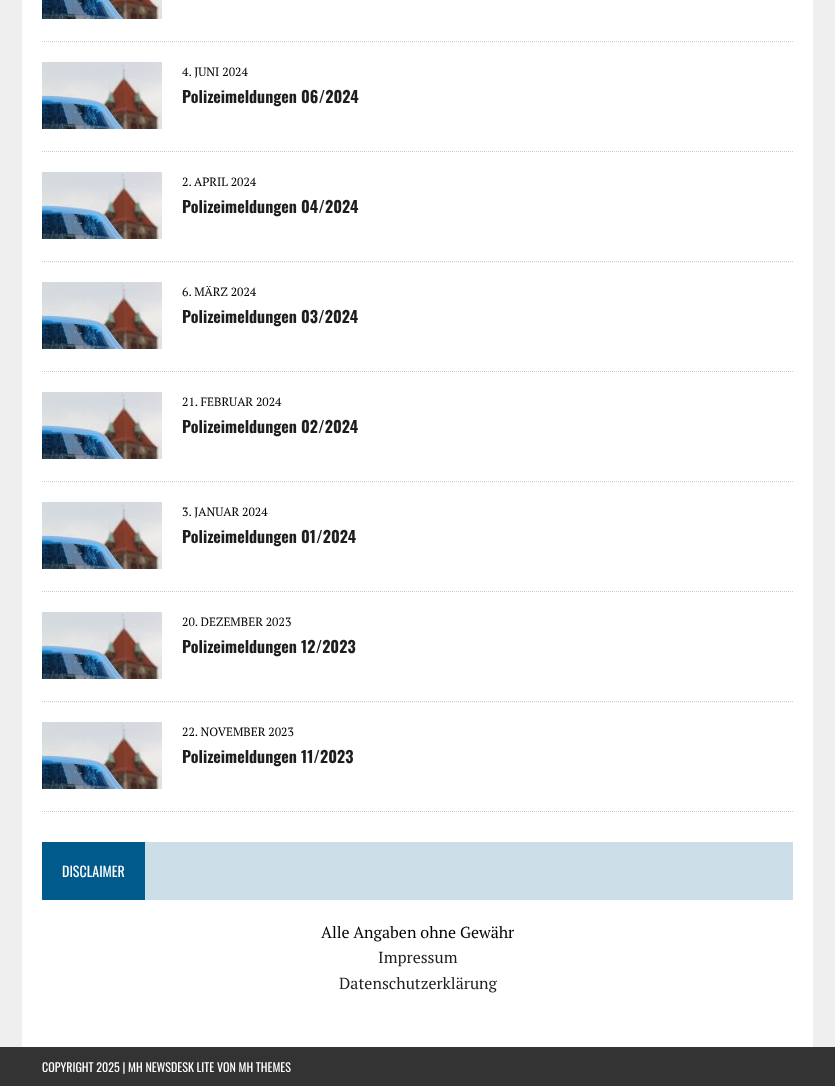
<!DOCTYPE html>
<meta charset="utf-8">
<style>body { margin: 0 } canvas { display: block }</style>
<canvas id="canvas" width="835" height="1086"></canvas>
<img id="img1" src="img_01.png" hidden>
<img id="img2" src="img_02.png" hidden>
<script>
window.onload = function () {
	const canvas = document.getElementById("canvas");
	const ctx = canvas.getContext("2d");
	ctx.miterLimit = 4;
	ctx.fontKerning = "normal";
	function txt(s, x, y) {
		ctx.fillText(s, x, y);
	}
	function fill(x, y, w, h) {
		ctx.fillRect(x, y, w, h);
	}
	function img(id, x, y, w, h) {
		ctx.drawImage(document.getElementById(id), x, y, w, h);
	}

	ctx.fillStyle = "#EFEFEF";
	fill(0, 0, 835, 1086);
	ctx.fillStyle = "#FFFFFF";
	fill(22, 0, 791, 1047);
	img("img1", 42, 0, 120, 19);
	ctx.beginPath();
	ctx.moveTo(42, 41.5);
	ctx.lineTo(793, 41.5);
	ctx.strokeStyle = "#CDCDCD";
	ctx.setLineDash([1, 1]);
	ctx.stroke();
	img("img2", 42, 62, 120, 67);
	ctx.beginPath();
	ctx.moveTo(42, 151.5);
	ctx.lineTo(793, 151.5);
	ctx.stroke();
	img("img2", 42, 172, 120, 67);
	ctx.beginPath();
	ctx.moveTo(42, 261.5);
	ctx.lineTo(793, 261.5);
	ctx.stroke();
	img("img2", 42, 282, 120, 67);
	ctx.beginPath();
	ctx.moveTo(42, 371.5);
	ctx.lineTo(793, 371.5);
	ctx.stroke();
	img("img2", 42, 392, 120, 67);
	ctx.beginPath();
	ctx.moveTo(42, 481.5);
	ctx.lineTo(793, 481.5);
	ctx.stroke();
	img("img2", 42, 502, 120, 67);
	ctx.beginPath();
	ctx.moveTo(42, 591.5);
	ctx.lineTo(793, 591.5);
	ctx.stroke();
	img("img2", 42, 612, 120, 67);
	ctx.beginPath();
	ctx.moveTo(42, 701.5);
	ctx.lineTo(793, 701.5);
	ctx.stroke();
	img("img2", 42, 722, 120, 67);
	ctx.beginPath();
	ctx.moveTo(42, 811.5);
	ctx.lineTo(793, 811.5);
	ctx.stroke();
	ctx.fillStyle = "#CCDEE8";
	fill(145, 842, 648, 58);
	ctx.fillStyle = "#005A8C";
	fill(42, 842, 103, 58);
	ctx.fillStyle = "#333333";
	fill(0, 1047, 835, 39);
	ctx.font = "12px PT Serif";
	ctx.fillStyle = "#000000";
	txt("4. JUNI 2024", 182, 76);
	ctx.font = "bold 16px Oswald";
	ctx.fillStyle = "#1F1E1E";
	txt("Polizeimeldungen 06/2024", 182, 103);
	ctx.font = "12px PT Serif";
	ctx.fillStyle = "#000000";
	txt("2. APRIL 2024", 182, 186);
	ctx.font = "bold 16px Oswald";
	ctx.fillStyle = "#1F1E1E";
	txt("Polizeimeldungen 04/2024", 182, 213);
	ctx.font = "12px PT Serif";
	ctx.fillStyle = "#000000";
	txt("6. MÄRZ 2024", 182, 296);
	ctx.font = "bold 16px Oswald";
	ctx.fillStyle = "#1F1E1E";
	txt("Polizeimeldungen 03/2024", 182, 323);
	ctx.font = "12px PT Serif";
	ctx.fillStyle = "#000000";
	txt("21. FEBRUAR 2024", 182, 406);
	ctx.font = "bold 16px Oswald";
	ctx.fillStyle = "#1F1E1E";
	txt("Polizeimeldungen 02/2024", 182, 433);
	ctx.font = "12px PT Serif";
	ctx.fillStyle = "#000000";
	txt("3. JANUAR 2024", 182, 516);
	ctx.font = "bold 16px Oswald";
	ctx.fillStyle = "#1F1E1E";
	txt("Polizeimeldungen 01/2024", 182, 543);
	ctx.font = "12px PT Serif";
	ctx.fillStyle = "#000000";
	txt("20. DEZEMBER 2023", 182, 626);
	ctx.font = "bold 16px Oswald";
	ctx.fillStyle = "#1F1E1E";
	txt("Polizeimeldungen 12/2023", 182, 653);
	ctx.font = "12px PT Serif";
	ctx.fillStyle = "#000000";
	txt("22. NOVEMBER 2023", 182, 736);
	ctx.font = "bold 16px Oswald";
	ctx.fillStyle = "#1F1E1E";
	txt("Polizeimeldungen 11/2023", 182, 763);
	ctx.font = "14px Oswald";
	ctx.fillStyle = "#FFFFFF";
	txt("DISCLAIMER", 62, 877);
	ctx.font = "16px PT Serif";
	ctx.fillStyle = "#000000";
	txt("Alle Angaben ohne Gewähr", 321, 938);
	ctx.fillStyle = "#1F1E1E";
	txt("Impressum", 378, 963);
	txt("Datenschutzerklärung", 339, 989);
	ctx.font = "12px Oswald";
	ctx.fillStyle = "#FFFFFF";
	txt("COPYRIGHT 2025 | MH NEWSDESK LITE VON MH THEMES", 42, 1072);
};
</script>
